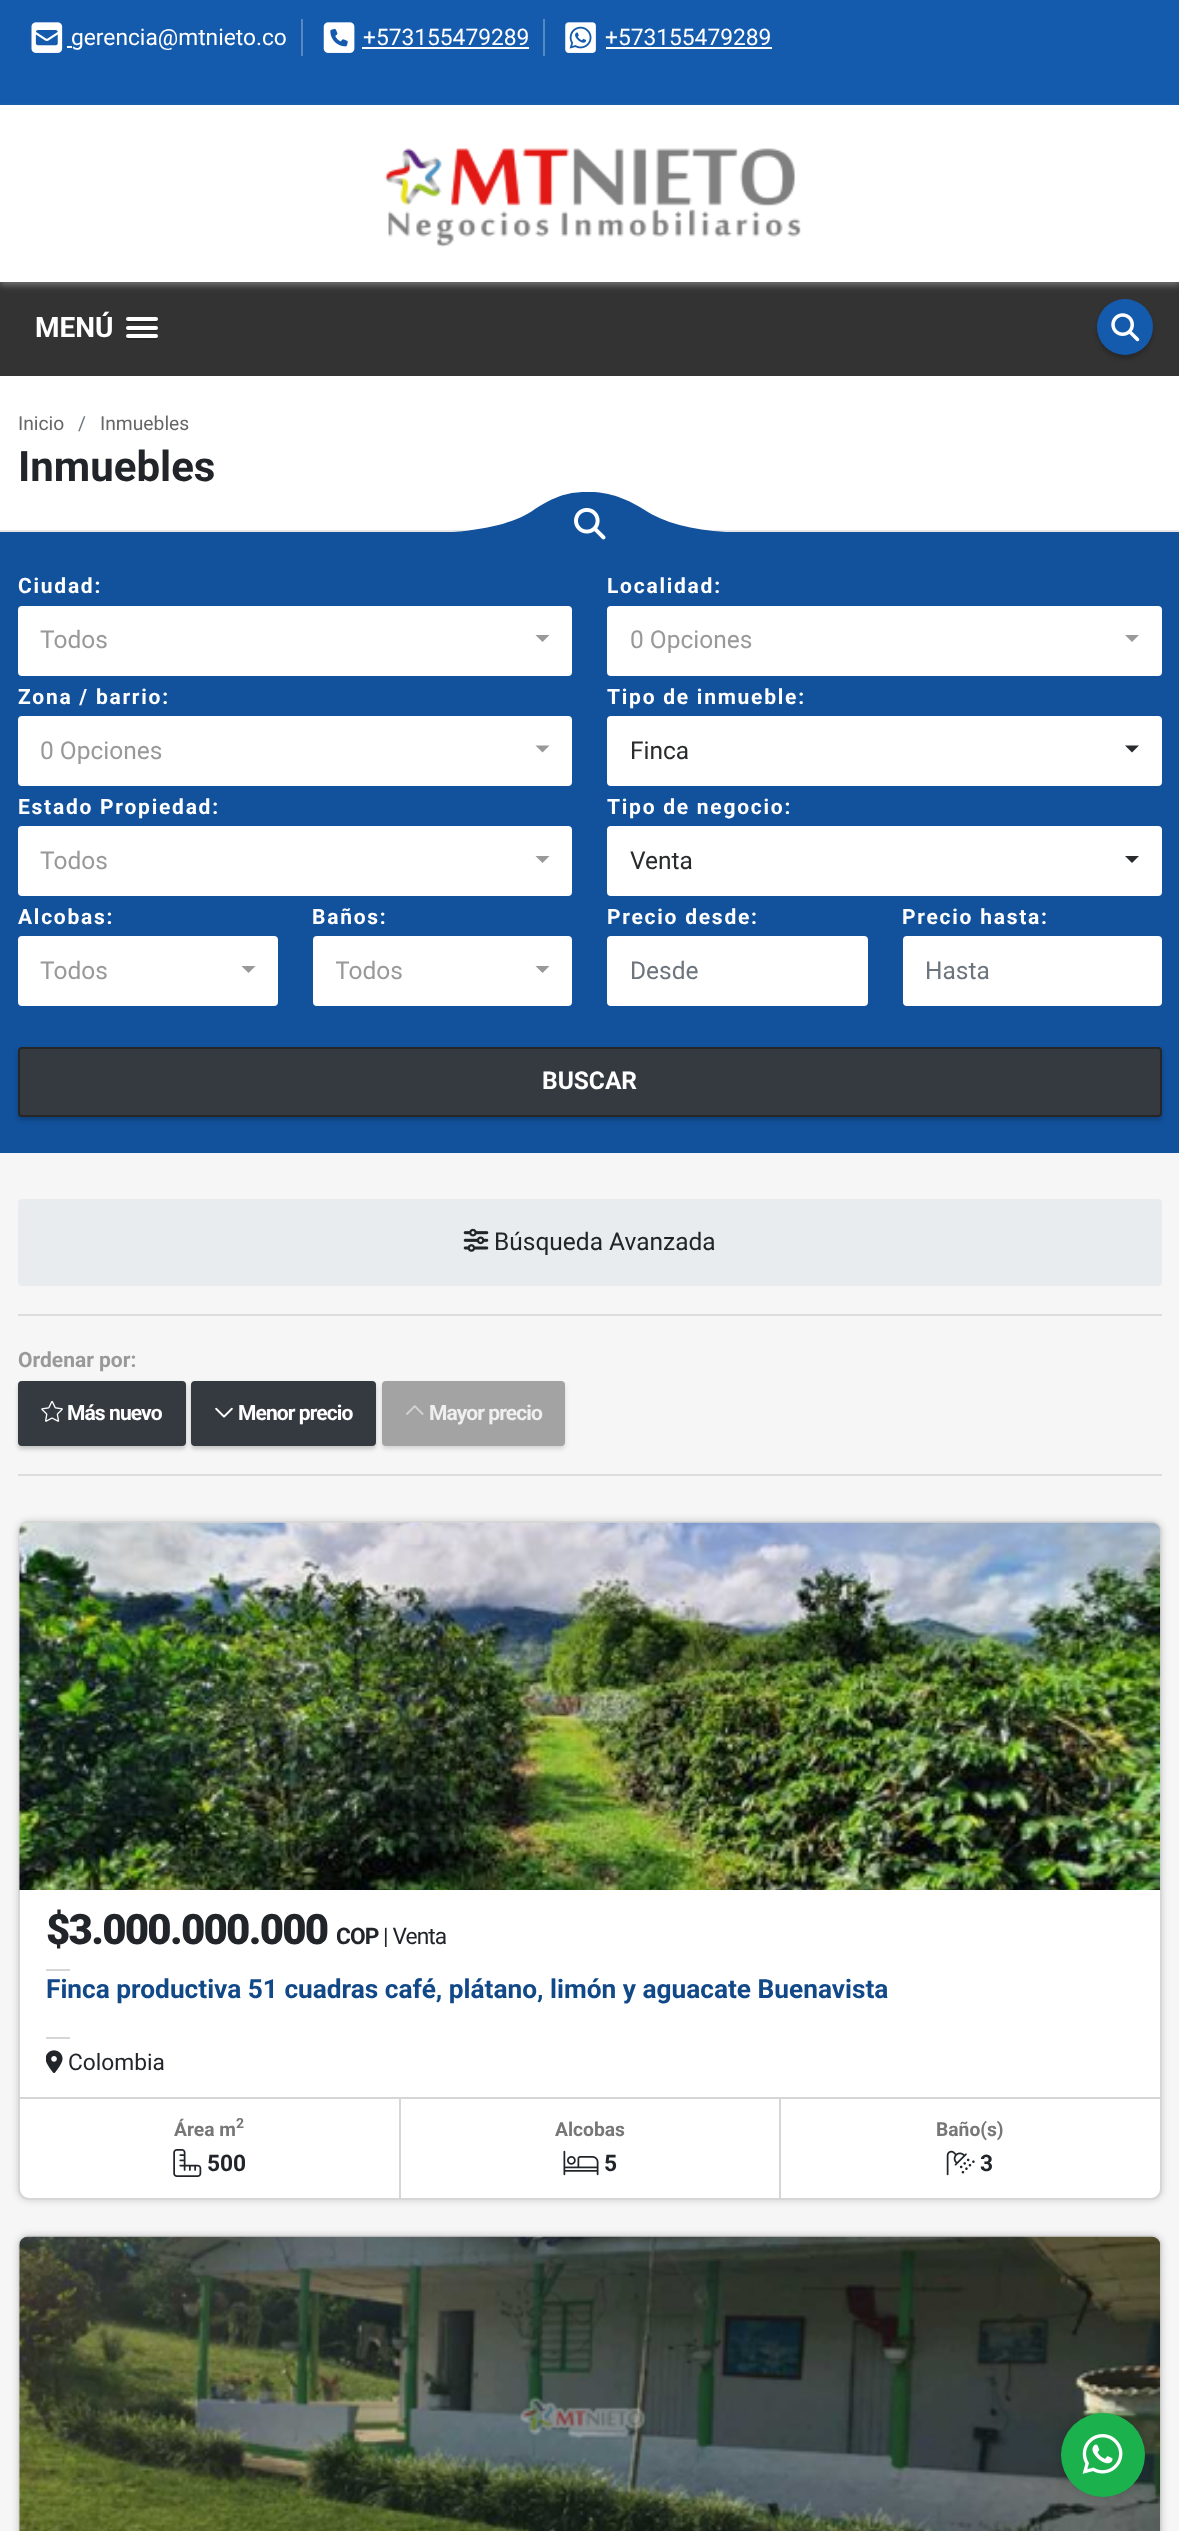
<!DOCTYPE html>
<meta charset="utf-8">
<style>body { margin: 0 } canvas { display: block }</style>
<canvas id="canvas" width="1179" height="2531"></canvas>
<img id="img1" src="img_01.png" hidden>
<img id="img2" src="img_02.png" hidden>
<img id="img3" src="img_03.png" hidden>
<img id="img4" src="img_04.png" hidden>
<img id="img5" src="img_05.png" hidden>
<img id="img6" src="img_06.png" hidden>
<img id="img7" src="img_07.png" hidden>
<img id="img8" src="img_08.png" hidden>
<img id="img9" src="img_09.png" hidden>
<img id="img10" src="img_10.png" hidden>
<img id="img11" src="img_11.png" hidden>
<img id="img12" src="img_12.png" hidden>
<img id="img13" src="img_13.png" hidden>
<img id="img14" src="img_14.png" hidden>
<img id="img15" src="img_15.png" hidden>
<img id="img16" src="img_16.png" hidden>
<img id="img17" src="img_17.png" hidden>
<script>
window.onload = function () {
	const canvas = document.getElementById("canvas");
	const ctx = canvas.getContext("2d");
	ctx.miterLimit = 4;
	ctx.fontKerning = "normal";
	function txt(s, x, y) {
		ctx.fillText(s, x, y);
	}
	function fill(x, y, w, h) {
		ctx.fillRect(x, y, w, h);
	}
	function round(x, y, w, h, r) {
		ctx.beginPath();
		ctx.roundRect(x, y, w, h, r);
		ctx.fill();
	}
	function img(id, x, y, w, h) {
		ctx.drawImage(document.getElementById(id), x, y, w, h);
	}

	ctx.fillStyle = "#F6F6F6";
	fill(0, 0, 1179, 2531);
	ctx.fillStyle = "#145BAD";
	fill(0, 0, 1179, 105);
	ctx.fillStyle = "#5689C4";
	fill(301, 19, 2, 37);
	img("img1", 31, 22, 32, 31);
	ctx.fillStyle = "#FFFFFF";
	fill(67, 46, 5, 2);
	ctx.fillStyle = "#5689C4";
	fill(543, 19, 2, 37);
	img("img2", 323, 22, 32, 31);
	ctx.fillStyle = "#FFFFFF";
	fill(362, 47, 167, 2);
	img("img3", 565, 22, 31, 31);
	fill(606, 47, 166, 2);
	ctx.fillStyle = "#333333";
	fill(0, 282, 1179, 94);
	ctx.fillStyle = "rgba(186, 186, 186, 0.5)";
	ctx.filter = "blur(3.5px)";
	ctx.beginPath();
	ctx.rect(0, 109, 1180, 176);
	ctx.fill();
	ctx.filter = "none";
	ctx.fillStyle = "#FFFFFF";
	fill(0, 105, 1179, 177);
	img("img4", 384, 148, 417, 99);
	ctx.fillStyle = "#262626";
	ctx.beginPath();
	ctx.moveTo(126.5, 319.5);
	ctx.bezierCurveTo(126, 320, 126, 321, 126, 321.5);
	ctx.bezierCurveTo(126.5, 324, 131.5, 323, 132.5, 323);
	ctx.lineTo(156, 323);
	ctx.bezierCurveTo(158, 323, 158.5, 320.5, 157, 319.5);
	ctx.lineTo(156, 320);
	ctx.lineTo(127.5, 320);
	ctx.closePath();
	ctx.fill();
	ctx.fillStyle = "#FFFFFF";
	round(126, 317, 32, 4, 2);
	ctx.fillStyle = "#262626";
	ctx.beginPath();
	ctx.moveTo(126, 328);
	ctx.bezierCurveTo(124.5, 332, 132, 331, 132.5, 331);
	ctx.lineTo(151.5, 331);
	ctx.bezierCurveTo(152.5, 331, 157.5, 332, 158, 329.5);
	ctx.bezierCurveTo(158, 329, 158, 328, 157.5, 327.5);
	ctx.bezierCurveTo(157.5, 328.5, 156.5, 329, 156, 329);
	ctx.lineTo(128, 329);
	ctx.bezierCurveTo(127, 329, 126.5, 328.5, 126, 328);
	ctx.closePath();
	ctx.fill();
	ctx.fillStyle = "#FFFFFF";
	round(126, 326, 32, 4, 2);
	ctx.fillStyle = "#262626";
	ctx.beginPath();
	ctx.moveTo(126.5, 337);
	ctx.bezierCurveTo(124, 341, 132, 340, 132.5, 340);
	ctx.lineTo(142, 340);
	ctx.bezierCurveTo(144.5, 340, 156, 340.5, 157.5, 339.5);
	ctx.bezierCurveTo(158, 338.5, 158, 337.5, 157.5, 336.5);
	ctx.lineTo(156.5, 337.5);
	ctx.lineTo(127.5, 337.5);
	ctx.closePath();
	ctx.fill();
	ctx.fillStyle = "#FFFFFF";
	round(126, 334, 32, 4, 2);
	ctx.fillStyle = "rgba(0, 0, 0, 0.2)";
	ctx.filter = "blur(2px)";
	ctx.beginPath();
	ctx.roundRect(1097, 303, 56, 56, 28);
	ctx.fill();
	ctx.filter = "none";
	ctx.fillStyle = "#145BAD";
	ctx.beginPath();
	ctx.arc(1125, 327, 28, 0, Math.PI * 2);
	ctx.fill();
	img("img5", 1111, 313, 29, 29);
	ctx.fillStyle = "#FFFFFF";
	fill(0, 376, 1179, 154);
	ctx.fillStyle = "#E6E6E6";
	fill(0, 530, 1179, 2);
	ctx.fillStyle = "#12519B";
	ctx.beginPath();
	ctx.moveTo(590, 492);
	ctx.bezierCurveTo(601, 492, 619, 494, 643, 509);
	ctx.bezierCurveTo(664, 523, 692, 530, 726, 532);
	ctx.lineTo(453, 532);
	ctx.bezierCurveTo(492, 529, 519, 521, 535, 509);
	ctx.bezierCurveTo(562, 491, 579, 492, 590, 492);
	ctx.closePath();
	ctx.fill("evenodd");
	fill(0, 532, 1179, 621);
	img("img6", 574, 507, 32, 33);
	ctx.fillStyle = "#FFFFFF";
	ctx.beginPath();
	ctx.roundRect(19, 607, 552, 68, 3);
	ctx.fill();
	ctx.strokeStyle = "#FFFFFF";
	ctx.lineWidth = 2;
	ctx.stroke();
	ctx.fillStyle = "#999999";
	ctx.beginPath();
	ctx.moveTo(535.5, 635);
	ctx.lineTo(549.5, 635);
	ctx.lineTo(542.5, 642);
	ctx.closePath();
	ctx.fill();
	ctx.fillStyle = "#FFFFFF";
	ctx.beginPath();
	ctx.roundRect(608, 607, 553, 68, 3);
	ctx.fill();
	ctx.stroke();
	ctx.fillStyle = "#999999";
	ctx.beginPath();
	ctx.moveTo(1125, 635);
	ctx.lineTo(1139, 635);
	ctx.lineTo(1132, 642);
	ctx.closePath();
	ctx.fill();
	ctx.fillStyle = "#FFFFFF";
	ctx.beginPath();
	ctx.roundRect(19, 717, 552, 68, 3);
	ctx.fill();
	ctx.stroke();
	ctx.fillStyle = "#999999";
	ctx.beginPath();
	ctx.moveTo(535.5, 745.5);
	ctx.lineTo(549.5, 745.5);
	ctx.lineTo(542.5, 752.5);
	ctx.closePath();
	ctx.fill();
	ctx.fillStyle = "#FFFFFF";
	ctx.beginPath();
	ctx.roundRect(608, 717, 553, 68, 3);
	ctx.fill();
	ctx.stroke();
	ctx.fillStyle = "#292B2C";
	ctx.beginPath();
	ctx.moveTo(1125, 745.5);
	ctx.lineTo(1139, 745.5);
	ctx.lineTo(1132, 752.5);
	ctx.closePath();
	ctx.fill();
	ctx.fillStyle = "#FFFFFF";
	ctx.beginPath();
	ctx.roundRect(19, 827, 552, 68, 3);
	ctx.fill();
	ctx.stroke();
	ctx.fillStyle = "#999999";
	ctx.beginPath();
	ctx.moveTo(535.5, 856);
	ctx.lineTo(549.5, 856);
	ctx.lineTo(542.5, 863);
	ctx.closePath();
	ctx.fill();
	ctx.fillStyle = "#FFFFFF";
	ctx.beginPath();
	ctx.roundRect(608, 827, 553, 68, 3);
	ctx.fill();
	ctx.stroke();
	ctx.fillStyle = "#292B2C";
	ctx.beginPath();
	ctx.moveTo(1125, 856);
	ctx.lineTo(1139, 856);
	ctx.lineTo(1132, 863);
	ctx.closePath();
	ctx.fill();
	ctx.fillStyle = "#FFFFFF";
	ctx.beginPath();
	ctx.roundRect(19, 937, 258, 68, 3);
	ctx.fill();
	ctx.stroke();
	ctx.fillStyle = "#999999";
	ctx.beginPath();
	ctx.moveTo(241.5, 966);
	ctx.lineTo(255.5, 966);
	ctx.lineTo(248.5, 973);
	ctx.closePath();
	ctx.fill();
	ctx.fillStyle = "#FFFFFF";
	ctx.beginPath();
	ctx.roundRect(314, 937, 257, 68, 3);
	ctx.fill();
	ctx.stroke();
	ctx.fillStyle = "#999999";
	ctx.beginPath();
	ctx.moveTo(535.5, 966);
	ctx.lineTo(549.5, 966);
	ctx.lineTo(542.5, 973);
	ctx.closePath();
	ctx.fill();
	ctx.fillStyle = "#FFFFFF";
	ctx.beginPath();
	ctx.roundRect(608, 937, 259, 68, 3);
	ctx.fill();
	ctx.stroke();
	ctx.beginPath();
	ctx.roundRect(904, 937, 257, 68, 3);
	ctx.fill();
	ctx.stroke();
	ctx.fillStyle = "rgba(0, 0, 0, 0.2)";
	ctx.filter = "blur(2px)";
	ctx.beginPath();
	ctx.roundRect(18, 1050, 1144, 70, 4);
	ctx.fill();
	ctx.filter = "none";
	ctx.fillStyle = "#343A40";
	ctx.beginPath();
	ctx.roundRect(19, 1048, 1142, 68, 3);
	ctx.fill();
	ctx.strokeStyle = "#262626";
	ctx.stroke();
	ctx.fillStyle = "#E9ECEF";
	ctx.beginPath();
	ctx.roundRect(19, 1200, 1142, 85, 3);
	ctx.fill();
	ctx.strokeStyle = "#E9ECEF";
	ctx.stroke();
	img("img7", 463, 1228, 26, 24);
	ctx.fillStyle = "#DDDDDD";
	fill(18, 1314, 1144, 2);
	ctx.fillStyle = "rgba(0, 0, 0, 0.2)";
	ctx.filter = "blur(2px)";
	ctx.beginPath();
	ctx.roundRect(18, 1384, 168, 65, 4);
	ctx.fill();
	ctx.filter = "none";
	ctx.fillStyle = "#343A40";
	ctx.beginPath();
	ctx.roundRect(19, 1382, 166, 63, 3);
	ctx.fill();
	ctx.strokeStyle = "#343A40";
	ctx.stroke();
	img("img8", 41, 1400, 22, 22);
	ctx.fillStyle = "rgba(0, 0, 0, 0.2)";
	ctx.filter = "blur(2px)";
	ctx.beginPath();
	ctx.roundRect(191, 1384, 185, 65, 4);
	ctx.fill();
	ctx.filter = "none";
	ctx.fillStyle = "#343A40";
	ctx.beginPath();
	ctx.roundRect(192, 1382, 183, 63, 3);
	ctx.fill();
	ctx.stroke();
	img("img9", 215, 1407, 18, 11);
	ctx.fillStyle = "rgba(0, 0, 0, 0.13)";
	ctx.filter = "blur(2px)";
	ctx.beginPath();
	ctx.roundRect(382, 1384, 183, 65, 4);
	ctx.fill();
	ctx.filter = "none";
	ctx.fillStyle = "#A3A3A3";
	ctx.beginPath();
	ctx.roundRect(383, 1382, 181, 63, 3);
	ctx.fill();
	ctx.strokeStyle = "#A3A3A3";
	ctx.stroke();
	img("img10", 406, 1405, 18, 10);
	ctx.fillStyle = "#DDDDDD";
	fill(18, 1474, 1144, 2);
	ctx.fillStyle = "rgba(163, 163, 163, 0.5)";
	ctx.filter = "blur(3.5px)";
	ctx.beginPath();
	ctx.roundRect(18, 1521, 1144, 679, 11);
	ctx.fill();
	ctx.filter = "none";
	ctx.fillStyle = "#FFFFFF";
	ctx.beginPath();
	ctx.roundRect(19, 1522, 1142, 677, 10);
	ctx.fill();
	ctx.strokeStyle = "#D6D6D6";
	ctx.stroke();
	img("img11", 19, 1522, 1142, 368);
	ctx.fillStyle = "#D6D6D6";
	fill(46, 1969, 24, 2);
	fill(46, 2037, 24, 2);
	img("img12", 46, 2050, 17, 23);
	fill(19, 2097, 1141, 2);
	img("img13", 173, 2149, 29, 28);
	fill(779, 2098, 2, 100);
	fill(399, 2098, 2, 100);
	img("img14", 563, 2150, 36, 26);
	img("img15", 946, 2150, 29, 26);
	ctx.fillStyle = "rgba(163, 163, 163, 0.5)";
	ctx.filter = "blur(3.5px)";
	ctx.beginPath();
	ctx.roundRect(18, 2235, 1144, 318, 11);
	ctx.fill();
	ctx.filter = "none";
	ctx.beginPath();
	ctx.roundRect(19, 2236, 1142, 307, 10);
	ctx.stroke();
	img("img16", 19, 2236, 1142, 295);
	ctx.fillStyle = "rgba(0, 0, 0, 0.2)";
	ctx.filter = "blur(5px)";
	ctx.beginPath();
	ctx.roundRect(1061, 2413, 84, 84, 42);
	ctx.fill();
	ctx.filter = "none";
	ctx.fillStyle = "#1BB24E";
	ctx.beginPath();
	ctx.arc(1103, 2455, 42, 0, Math.PI * 2);
	ctx.fill();
	img("img17", 1082, 2434, 41, 40);
	ctx.font = "22.75px Roboto";
	ctx.fillStyle = "#FFFFFF";
	txt("gerencia@mtnieto.co", 71, 45);
	txt("+573155479289", 363, 45);
	txt("+573155479289", 605, 45);
	ctx.font = "bold 28px Roboto";
	txt("MENÚ", 35, 337);
	ctx.font = "19.25px Roboto";
	ctx.fillStyle = "#666666";
	txt("Inicio", 18, 430);
	ctx.fillStyle = "#6C757D";
	txt("/", 78, 430);
	ctx.fillStyle = "#666666";
	txt("Inmuebles", 100, 430);
	ctx.font = "bold 42px Roboto";
	ctx.fillStyle = "#212529";
	txt("Inmuebles", 18, 481);
	ctx.letterSpacing = "1.75px";
	ctx.font = "bold 21px Roboto";
	ctx.fillStyle = "#FFFFFF";
	txt("Ciudad:", 18, 593);
	ctx.letterSpacing = "0px";
	ctx.font = "24.5px Roboto";
	ctx.fillStyle = "#999999";
	txt("Todos", 40, 648);
	ctx.letterSpacing = "1.75px";
	ctx.font = "bold 21px Roboto";
	ctx.fillStyle = "#FFFFFF";
	txt("Localidad:", 607, 593);
	ctx.letterSpacing = "0px";
	ctx.font = "24.5px Roboto";
	ctx.fillStyle = "#999999";
	txt("0 Opciones", 630, 648);
	ctx.letterSpacing = "1.75px";
	ctx.font = "bold 21px Roboto";
	ctx.fillStyle = "#FFFFFF";
	txt("Zona / barrio:", 18, 704);
	ctx.letterSpacing = "0px";
	ctx.font = "24.5px Roboto";
	ctx.fillStyle = "#999999";
	txt("0 Opciones", 40, 759);
	ctx.letterSpacing = "1.75px";
	ctx.font = "bold 21px Roboto";
	ctx.fillStyle = "#FFFFFF";
	txt("Tipo de inmueble:", 607, 704);
	ctx.letterSpacing = "0px";
	ctx.font = "24.5px Roboto";
	ctx.fillStyle = "#292B2C";
	txt("Finca", 630, 759);
	ctx.letterSpacing = "1.75px";
	ctx.font = "bold 21px Roboto";
	ctx.fillStyle = "#FFFFFF";
	txt("Estado Propiedad:", 18, 814);
	ctx.letterSpacing = "0px";
	ctx.font = "24.5px Roboto";
	ctx.fillStyle = "#999999";
	txt("Todos", 40, 869);
	ctx.letterSpacing = "1.75px";
	ctx.font = "bold 21px Roboto";
	ctx.fillStyle = "#FFFFFF";
	txt("Tipo de negocio:", 607, 814);
	ctx.letterSpacing = "0px";
	ctx.font = "24.5px Roboto";
	ctx.fillStyle = "#292B2C";
	txt("Venta", 630, 869);
	ctx.letterSpacing = "1.75px";
	ctx.font = "bold 21px Roboto";
	ctx.fillStyle = "#FFFFFF";
	txt("Alcobas:", 18, 924);
	ctx.letterSpacing = "0px";
	ctx.font = "24.5px Roboto";
	ctx.fillStyle = "#999999";
	txt("Todos", 40, 979);
	ctx.letterSpacing = "1.75px";
	ctx.font = "bold 21px Roboto";
	ctx.fillStyle = "#FFFFFF";
	txt("Baños:", 312, 924);
	ctx.save();
	ctx.beginPath();
	ctx.rect(336, 952, 193, 37);
	ctx.clip();
	ctx.letterSpacing = "0px";
	ctx.font = "24.5px Roboto";
	ctx.fillStyle = "#999999";
	txt("Todos", 335, 979);
	ctx.restore();
	txt("Precio desde:", 607, 924);
	ctx.letterSpacing = "0px";
	ctx.font = "24.5px Roboto";
	ctx.fillStyle = "#6C757D";
	txt("Desde", 630, 979);
	ctx.letterSpacing = "1.75px";
	ctx.font = "bold 21px Roboto";
	ctx.fillStyle = "#FFFFFF";
	txt("Precio hasta:", 902, 924);
	ctx.letterSpacing = "0px";
	ctx.font = "24.5px Roboto";
	ctx.fillStyle = "#6C757D";
	txt("Hasta", 925, 979);
	ctx.font = "bold 24.5px Roboto";
	ctx.fillStyle = "#FFFFFF";
	txt("BUSCAR", 542, 1089);
	ctx.font = "24.5px Roboto";
	ctx.fillStyle = "#212529";
	txt("Búsqueda Avanzada", 494, 1250);
	ctx.font = "bold 21px Roboto";
	ctx.fillStyle = "#999999";
	txt("Ordenar por:", 18, 1367);
	ctx.letterSpacing = "-0.9px";
	ctx.fillStyle = "#FFFFFF";
	txt("Más nuevo", 67, 1420);
	txt("Menor precio", 238, 1420);
	ctx.fillStyle = "#EFEFEF";
	txt("Mayor precio", 429, 1420);
	ctx.letterSpacing = "-1.75px";
	ctx.font = "900 42px Roboto";
	ctx.fillStyle = "#212529";
	txt("$3.000.000.000", 46, 1944);
	ctx.letterSpacing = "-0.9px";
	ctx.font = "bold 22.75px Roboto";
	txt("COP", 336, 1944);
	ctx.font = "22.75px Roboto";
	txt("| Venta", 383, 1944);
	ctx.letterSpacing = "0px";
	ctx.font = "bold 26.25px Roboto";
	ctx.fillStyle = "#104888";
	txt("Finca productiva 51 cuadras café, plátano, limón y aguacate Buenavista", 46, 1998);
	ctx.font = "22.75px Roboto";
	ctx.fillStyle = "#212529";
	txt("Colombia", 68, 2070);
	ctx.font = "bold 19.25px Roboto";
	ctx.fillStyle = "#777777";
	txt("Área m", 174, 2136);
	ctx.font = "bold 14px Roboto";
	txt("2", 236, 2128);
	ctx.font = "bold 22.75px Roboto";
	ctx.fillStyle = "#212529";
	txt("500", 207, 2171);
	ctx.font = "bold 19.25px Roboto";
	ctx.fillStyle = "#777777";
	txt("Alcobas", 555, 2136);
	ctx.font = "bold 22.75px Roboto";
	ctx.fillStyle = "#212529";
	txt("5", 604, 2171);
	ctx.font = "bold 19.25px Roboto";
	ctx.fillStyle = "#777777";
	txt("Baño(s)", 936, 2136);
	ctx.font = "bold 22.75px Roboto";
	ctx.fillStyle = "#212529";
	txt("3", 980, 2171);
};
</script>
